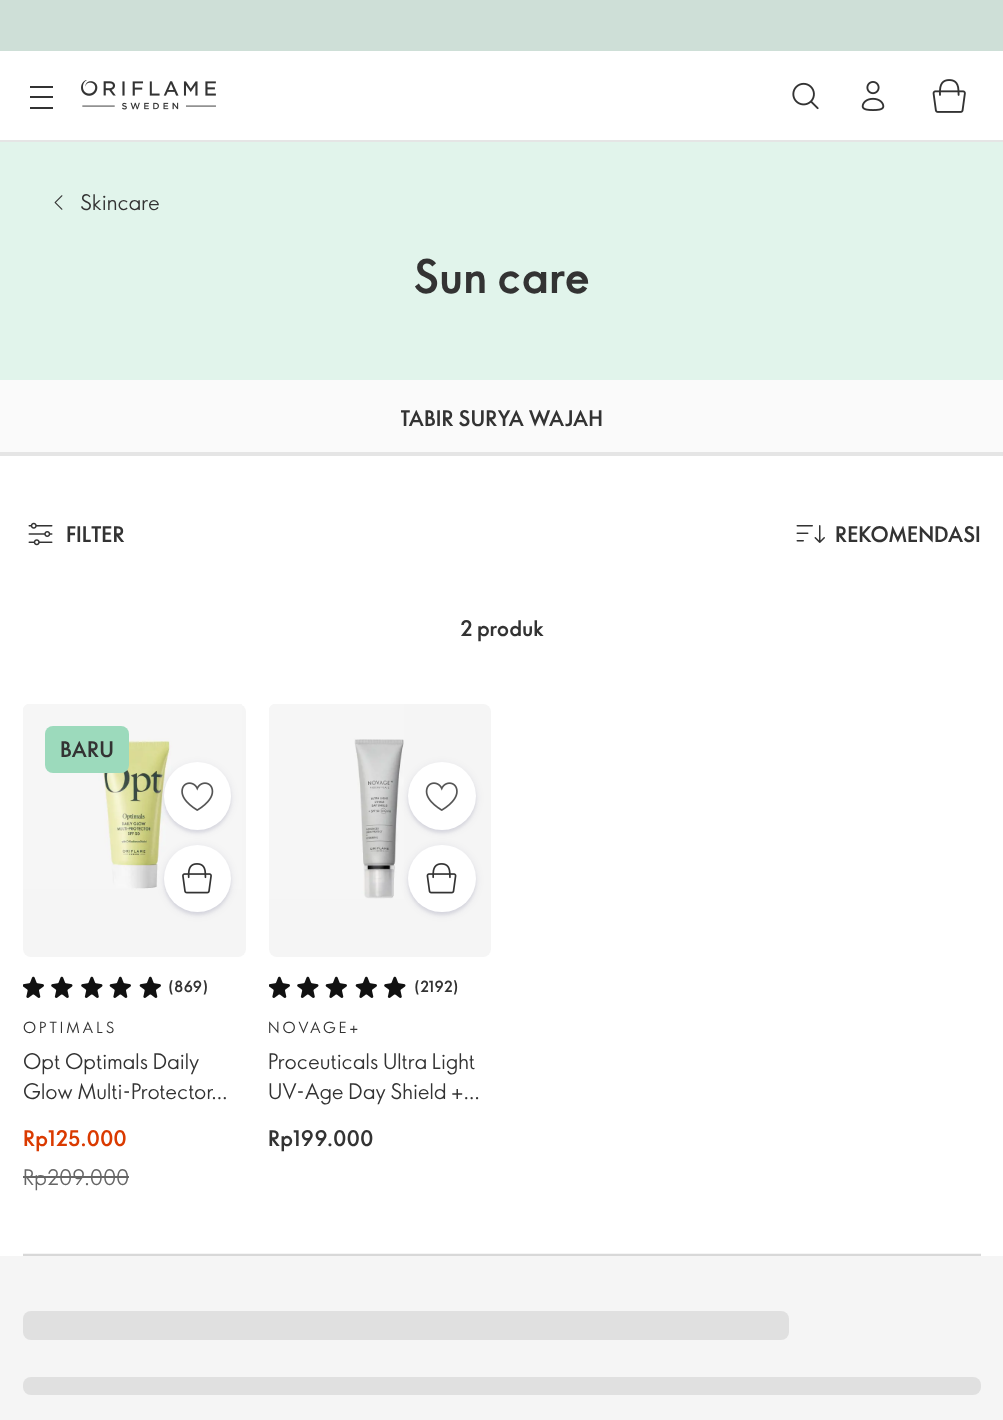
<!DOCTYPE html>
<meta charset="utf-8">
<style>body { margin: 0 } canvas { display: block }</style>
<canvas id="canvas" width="1003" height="1420"></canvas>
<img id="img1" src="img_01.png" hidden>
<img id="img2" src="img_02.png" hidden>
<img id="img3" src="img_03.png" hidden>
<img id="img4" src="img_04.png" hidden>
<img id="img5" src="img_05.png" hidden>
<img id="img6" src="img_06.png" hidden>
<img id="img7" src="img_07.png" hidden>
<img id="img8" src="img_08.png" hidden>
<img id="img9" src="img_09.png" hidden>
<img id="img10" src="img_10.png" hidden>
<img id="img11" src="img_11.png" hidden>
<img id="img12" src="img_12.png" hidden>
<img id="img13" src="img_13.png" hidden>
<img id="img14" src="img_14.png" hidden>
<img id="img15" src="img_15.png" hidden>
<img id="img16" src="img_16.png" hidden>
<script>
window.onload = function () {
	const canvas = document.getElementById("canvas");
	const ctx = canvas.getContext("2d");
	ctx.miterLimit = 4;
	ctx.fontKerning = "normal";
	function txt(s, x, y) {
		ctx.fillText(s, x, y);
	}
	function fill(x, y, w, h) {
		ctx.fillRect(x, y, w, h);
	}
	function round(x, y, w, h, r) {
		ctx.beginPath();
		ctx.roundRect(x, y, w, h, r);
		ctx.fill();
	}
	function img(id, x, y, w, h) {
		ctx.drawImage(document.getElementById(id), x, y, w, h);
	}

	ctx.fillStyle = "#FFFFFF";
	fill(0, 0, 1003, 1420);
	ctx.fillStyle = "#E5E5E5";
	fill(0, 140, 1003, 2);
	ctx.fillStyle = "#CEDFD7";
	fill(0, 0, 1003, 51);
	ctx.fillStyle = "#333333";
	fill(30, 86, 23, 2);
	fill(30, 96, 23, 2);
	fill(30, 107, 23, 2);
	img("img1", 81, 80, 135, 30);
	img("img2", 792, 82, 27, 28);
	img("img3", 861, 81, 24, 30);
	img("img4", 932, 79, 34, 34);
	ctx.fillStyle = "#E1F4EB";
	fill(0, 142, 1003, 238);
	img("img5", 54, 195, 9, 15);
	ctx.fillStyle = "#FAFAFA";
	fill(0, 380, 1003, 72);
	ctx.fillStyle = "#E5E5E5";
	fill(0, 452, 1003, 4);
	img("img6", 28, 522, 25, 24);
	img("img7", 796, 525, 29, 18);
	ctx.fillStyle = "#F5F5F5";
	ctx.beginPath();
	ctx.roundRect(23, 704, 223, 223, [8, 8, 0, 0]);
	ctx.fill();
	img("img8", 23, 704, 219, 185);
	ctx.fillStyle = "#9CDABC";
	round(45, 726, 84, 47, 8);
	ctx.fillStyle = "rgba(0, 0, 66, 0.08)";
	ctx.filter = "blur(4px)";
	ctx.beginPath();
	ctx.roundRect(164, 764, 67, 67, 33.5);
	ctx.fill();
	ctx.filter = "none";
	ctx.filter = "blur(1.5px)";
	ctx.beginPath();
	ctx.roundRect(164, 765, 67, 68, 33.5);
	ctx.fill();
	ctx.filter = "none";
	ctx.fillStyle = "#FFFFFF";
	round(164, 762, 67, 68, 33.5);
	img("img9", 181, 782, 33, 29);
	ctx.fillStyle = "rgba(0, 0, 66, 0.08)";
	ctx.filter = "blur(4px)";
	ctx.beginPath();
	ctx.roundRect(164, 846, 67, 68, 33.5);
	ctx.fill();
	ctx.filter = "none";
	ctx.filter = "blur(1.5px)";
	ctx.beginPath();
	ctx.roundRect(164, 848, 67, 67, 33.5);
	ctx.fill();
	ctx.filter = "none";
	ctx.fillStyle = "#FFFFFF";
	ctx.beginPath();
	ctx.arc(197.5, 878.5, 33.5, 0, Math.PI * 2);
	ctx.fill();
	img("img10", 182, 863, 30, 31);
	ctx.fillStyle = "#F5F5F5";
	ctx.beginPath();
	ctx.roundRect(23, 927, 223, 30, [0, 0, 8, 8]);
	ctx.fill();
	img("img11", 23, 976, 21, 22);
	img("img12", 51, 976, 22, 22);
	img("img12", 81, 976, 22, 22);
	img("img13", 109, 976, 22, 22);
	img("img13", 139, 976, 22, 22);
	ctx.fillStyle = "#666666";
	fill(23, 1176, 106, 2);
	ctx.fillStyle = "#F5F5F5";
	ctx.beginPath();
	ctx.roundRect(269, 704, 222, 223, [8, 8, 0, 0]);
	ctx.fill();
	img("img14", 269, 704, 135, 195);
	ctx.fillStyle = "rgba(0, 0, 66, 0.08)";
	ctx.filter = "blur(4px)";
	ctx.beginPath();
	ctx.roundRect(408, 764, 68, 67, 33.5);
	ctx.fill();
	ctx.filter = "none";
	ctx.filter = "blur(1.5px)";
	ctx.beginPath();
	ctx.roundRect(408, 765, 68, 68, 34);
	ctx.fill();
	ctx.filter = "none";
	ctx.fillStyle = "#FFFFFF";
	ctx.beginPath();
	ctx.arc(442, 796, 34, 0, Math.PI * 2);
	ctx.fill();
	img("img15", 425, 782, 33, 29);
	ctx.fillStyle = "rgba(0, 0, 66, 0.08)";
	ctx.filter = "blur(4px)";
	ctx.beginPath();
	ctx.roundRect(408, 846, 68, 68, 34);
	ctx.fill();
	ctx.filter = "none";
	ctx.filter = "blur(1.5px)";
	ctx.beginPath();
	ctx.roundRect(408, 848, 68, 67, 33.5);
	ctx.fill();
	ctx.filter = "none";
	ctx.fillStyle = "#FFFFFF";
	round(408, 845, 68, 67, 33.5);
	img("img16", 426, 863, 31, 31);
	ctx.fillStyle = "#F5F5F5";
	ctx.beginPath();
	ctx.roundRect(269, 927, 222, 30, [0, 0, 8, 8]);
	ctx.fill();
	img("img11", 269, 976, 21, 22);
	img("img12", 297, 976, 22, 22);
	img("img13", 325, 976, 22, 22);
	img("img13", 355, 976, 22, 22);
	img("img12", 384, 976, 22, 22);
	fill(23, 1253, 958, 1);
	ctx.fillStyle = "#D8D8D8";
	fill(23, 1254, 958, 2);
	ctx.fillStyle = "#F5F5F5";
	fill(0, 1256, 1003, 164);
	ctx.fillStyle = "#E0E0E0";
	round(23, 1311, 766, 29, 8);
	round(23, 1377, 958, 18, 8);
	ctx.font = "21px 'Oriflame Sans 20'";
	ctx.fillStyle = "#333333";
	txt("Skincare", 80, 210);
	ctx.font = "bold 45px 'Oriflame Sans 20'";
	txt("Sun care", 413, 293);
	ctx.save();
	ctx.beginPath();
	ctx.rect(401, 380, 202, 76);
	ctx.clip();
	ctx.font = "bold 21px 'Oriflame Sans 20'";
	txt("TABIR SURYA WAJAH", 400, 426);
	ctx.restore();
	ctx.font = "bold 21px 'Oriflame Sans 20'";
	txt("FILTER", 66, 542);
	txt("REKOMENDASI", 835, 542);
	txt("2 produk", 460, 636);
	txt("BARU", 60, 757);
	ctx.font = "bold 15px 'Oriflame Sans 20'";
	txt("(869)", 168, 992);
	ctx.letterSpacing = "3px";
	ctx.font = "15px 'Oriflame Sans 20'";
	txt("OPTIMALS", 23, 1033);
	ctx.letterSpacing = "0px";
	ctx.font = "21px 'Oriflame Sans 20'";
	txt("Opt Optimals Daily", 23, 1069);
	txt("Glow Multi-Protector…", 23, 1099);
	ctx.font = "bold 21px 'Oriflame Sans 20'";
	ctx.fillStyle = "#DA3A00";
	txt("Rp125.000", 23, 1146);
	ctx.font = "21px 'Oriflame Sans 20'";
	ctx.fillStyle = "#666666";
	txt("Rp209.000", 23, 1185);
	ctx.font = "bold 15px 'Oriflame Sans 20'";
	ctx.fillStyle = "#333333";
	txt("(2192)", 414, 992);
	ctx.save();
	ctx.beginPath();
	ctx.rect(269, 1017, 222, 23);
	ctx.clip();
	ctx.letterSpacing = "3px";
	ctx.font = "15px 'Oriflame Sans 20'";
	txt("NOVAGE+", 268, 1033);
	ctx.restore();
	ctx.font = "21px 'Oriflame Sans 20'";
	txt("Proceuticals Ultra Light", 268, 1069);
	txt("UV-Age Day Shield +…", 268, 1099);
	ctx.font = "bold 21px 'Oriflame Sans 20'";
	txt("Rp199.000", 268, 1146);
};
</script>
